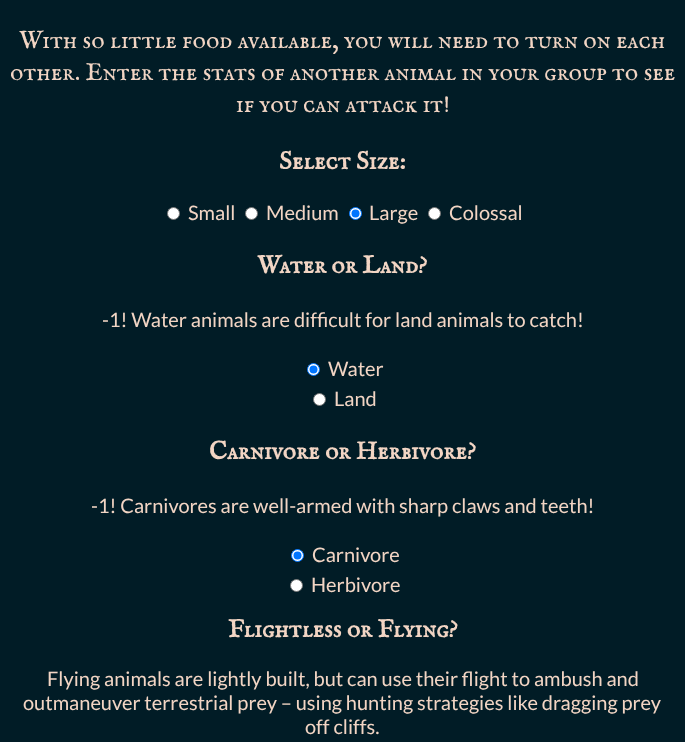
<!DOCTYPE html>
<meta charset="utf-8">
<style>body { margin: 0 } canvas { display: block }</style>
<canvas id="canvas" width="685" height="742"></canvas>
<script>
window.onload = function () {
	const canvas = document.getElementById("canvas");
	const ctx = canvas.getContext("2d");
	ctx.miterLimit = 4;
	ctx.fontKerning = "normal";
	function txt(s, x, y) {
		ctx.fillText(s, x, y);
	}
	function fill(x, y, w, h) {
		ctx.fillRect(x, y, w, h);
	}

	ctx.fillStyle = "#011C26";
	fill(0, 0, 685, 742);
	ctx.fillStyle = "#FFFFFF";
	ctx.beginPath();
	ctx.arc(173.5, 213.5, 6, 0, Math.PI * 2);
	ctx.fill();
	ctx.strokeStyle = "#767676";
	ctx.stroke();
	ctx.beginPath();
	ctx.arc(251.5, 213.5, 6, 0, Math.PI * 2);
	ctx.fill();
	ctx.stroke();
	ctx.beginPath();
	ctx.arc(355.5, 213.5, 6, 0, Math.PI * 2);
	ctx.fill();
	ctx.strokeStyle = "#0075FF";
	ctx.stroke();
	ctx.fillStyle = "#0075FF";
	ctx.beginPath();
	ctx.arc(355.5, 213.5, 4, 0, Math.PI * 2);
	ctx.fill();
	ctx.fillStyle = "#FFFFFF";
	ctx.beginPath();
	ctx.arc(434.5, 213.5, 6, 0, Math.PI * 2);
	ctx.fill();
	ctx.strokeStyle = "#767676";
	ctx.stroke();
	ctx.beginPath();
	ctx.arc(313.5, 369.5, 6, 0, Math.PI * 2);
	ctx.fill();
	ctx.strokeStyle = "#0075FF";
	ctx.stroke();
	ctx.fillStyle = "#0075FF";
	ctx.beginPath();
	ctx.arc(313.5, 369.5, 4, 0, Math.PI * 2);
	ctx.fill();
	ctx.fillStyle = "#FFFFFF";
	ctx.beginPath();
	ctx.arc(319.5, 399.5, 6, 0, Math.PI * 2);
	ctx.fill();
	ctx.strokeStyle = "#767676";
	ctx.stroke();
	ctx.beginPath();
	ctx.arc(297.5, 555.5, 6, 0, Math.PI * 2);
	ctx.fill();
	ctx.strokeStyle = "#0075FF";
	ctx.stroke();
	ctx.fillStyle = "#0075FF";
	ctx.beginPath();
	ctx.arc(297.5, 555.5, 4, 0, Math.PI * 2);
	ctx.fill();
	ctx.fillStyle = "#FFFFFF";
	ctx.beginPath();
	ctx.arc(296.5, 585.5, 6, 0, Math.PI * 2);
	ctx.fill();
	ctx.strokeStyle = "#767676";
	ctx.stroke();
	ctx.font = "25px IM FELL English SC";
	ctx.fillStyle = "#F2D5C4";
	txt("With so little food available, you will need to turn on each", 19, 48);
	txt("other. Enter the stats of another animal in your group to see", 10, 80);
	txt("if you can attack it!", 236, 112);
	ctx.font = "bold 25px IM FELL English SC";
	txt("Select Size:", 279, 169);
	ctx.font = "20px Lato";
	txt("Small", 188, 220);
	txt("Medium", 266, 220);
	txt("Large", 369, 220);
	txt("Colossal", 449, 220);
	ctx.font = "bold 25px IM FELL English SC";
	txt("Water or Land?", 257, 273);
	ctx.font = "20px Lato";
	txt("-1! Water animals are difficult for land animals to catch!", 102, 327);
	txt("Water", 328, 376);
	txt("Land", 334, 406);
	ctx.font = "bold 25px IM FELL English SC";
	txt("Carnivore or Herbivore?", 209, 459);
	ctx.font = "20px Lato";
	txt("-1! Carnivores are well-armed with sharp claws and teeth!", 91, 513);
	txt("Carnivore", 312, 562);
	txt("Herbivore", 311, 592);
	ctx.font = "bold 25px IM FELL English SC";
	txt("Flightless or Flying?", 228, 637);
	ctx.font = "20px Lato";
	txt("Flying animals are lightly built, but can use their flight to ambush and", 47, 686);
	txt("outmaneuver terrestrial prey – using hunting strategies like dragging prey", 23, 710);
	txt("off cliffs.", 305, 734);
};
</script>
